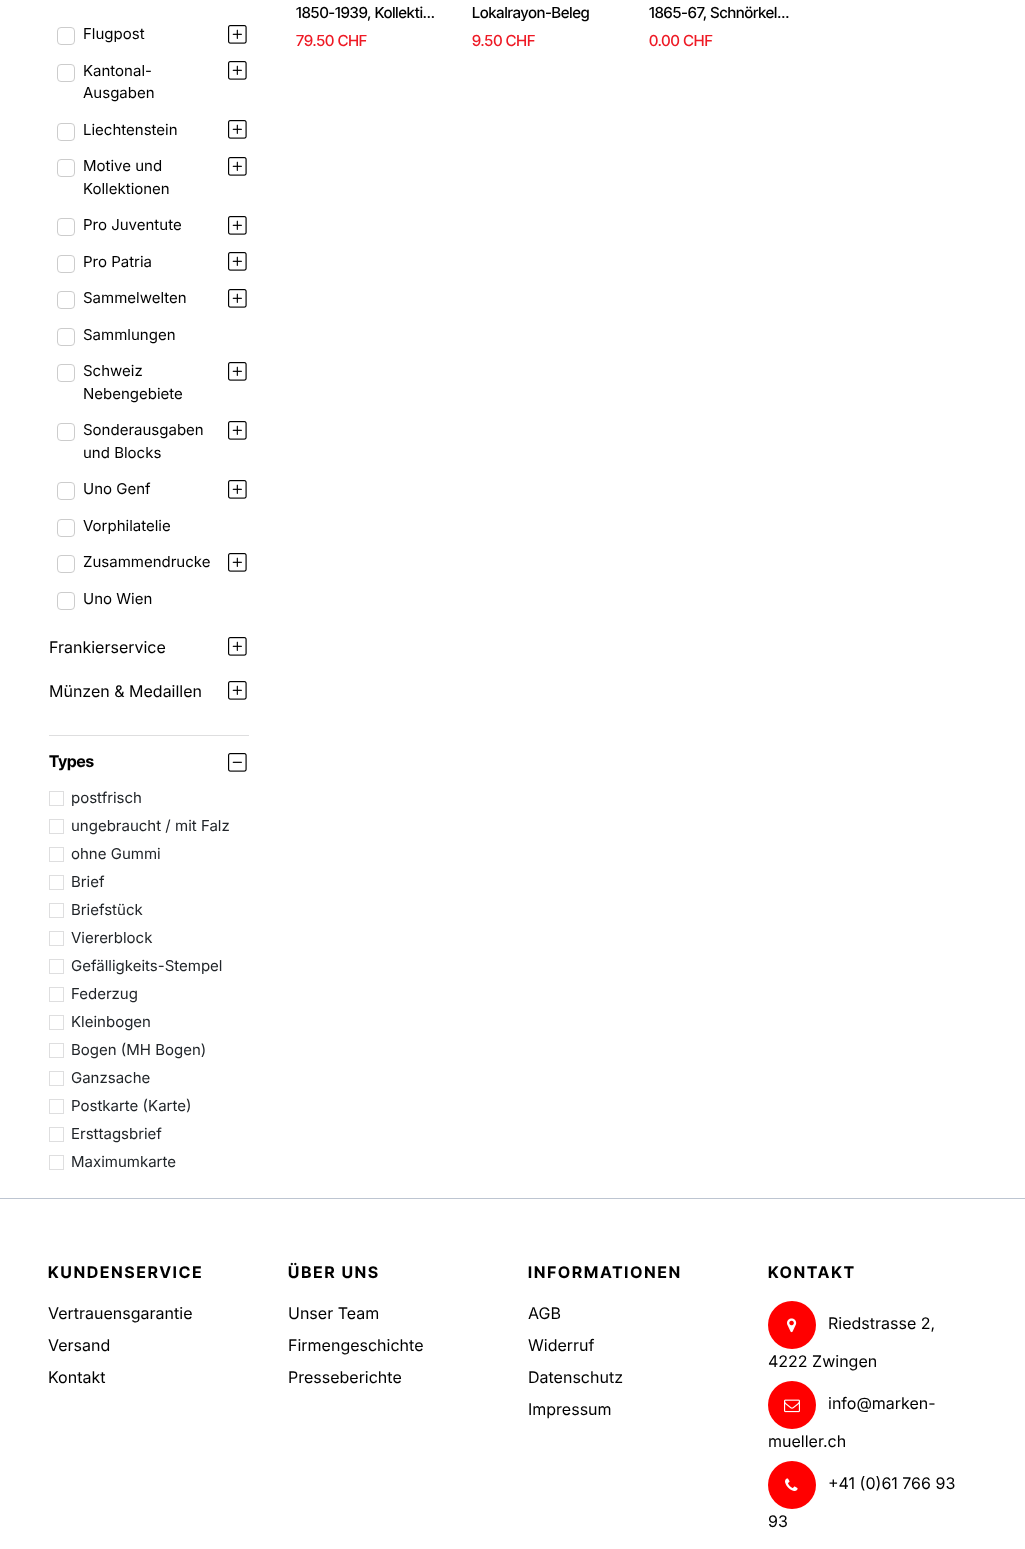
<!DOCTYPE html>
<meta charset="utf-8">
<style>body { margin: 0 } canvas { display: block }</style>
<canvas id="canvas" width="1025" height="1549"></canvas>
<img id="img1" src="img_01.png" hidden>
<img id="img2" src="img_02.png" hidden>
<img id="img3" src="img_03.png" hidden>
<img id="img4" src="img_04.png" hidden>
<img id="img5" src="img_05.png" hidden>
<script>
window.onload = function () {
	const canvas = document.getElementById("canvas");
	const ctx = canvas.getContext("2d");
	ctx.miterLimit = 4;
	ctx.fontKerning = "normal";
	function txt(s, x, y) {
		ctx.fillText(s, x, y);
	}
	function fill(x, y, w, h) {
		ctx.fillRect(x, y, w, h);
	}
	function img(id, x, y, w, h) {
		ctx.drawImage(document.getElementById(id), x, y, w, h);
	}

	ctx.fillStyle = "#FFFFFF";
	fill(0, 0, 1025, 1549);
	ctx.beginPath();
	ctx.roundRect(57.5, 27.5, 17, 17, 3.5);
	ctx.strokeStyle = "#CCCCCC";
	ctx.stroke();
	img("img1", 228, 25, 19, 19);
	ctx.beginPath();
	ctx.roundRect(57.5, 64.5, 17, 17, 3.5);
	ctx.stroke();
	img("img1", 228, 61, 19, 19);
	ctx.beginPath();
	ctx.roundRect(57.5, 123.5, 17, 17, 3.5);
	ctx.stroke();
	img("img1", 228, 120, 19, 19);
	ctx.beginPath();
	ctx.roundRect(57.5, 159.5, 17, 17, 3.5);
	ctx.stroke();
	img("img1", 228, 157, 19, 19);
	ctx.beginPath();
	ctx.roundRect(57.5, 218.5, 17, 17, 3.5);
	ctx.stroke();
	img("img1", 228, 216, 19, 19);
	ctx.beginPath();
	ctx.roundRect(57.5, 255.5, 17, 17, 3.5);
	ctx.stroke();
	img("img1", 228, 252, 19, 19);
	ctx.beginPath();
	ctx.roundRect(57.5, 291.5, 17, 17, 3.5);
	ctx.stroke();
	img("img1", 228, 289, 19, 19);
	ctx.beginPath();
	ctx.roundRect(57.5, 328.5, 17, 17, 3.5);
	ctx.stroke();
	ctx.beginPath();
	ctx.roundRect(57.5, 364.5, 17, 17, 3.5);
	ctx.stroke();
	img("img1", 228, 362, 19, 19);
	ctx.beginPath();
	ctx.roundRect(57.5, 423.5, 17, 17, 3.5);
	ctx.stroke();
	img("img1", 228, 421, 19, 19);
	ctx.beginPath();
	ctx.roundRect(57.5, 482.5, 17, 17, 3.5);
	ctx.stroke();
	img("img1", 228, 480, 19, 19);
	ctx.beginPath();
	ctx.roundRect(57.5, 519.5, 17, 17, 3.5);
	ctx.stroke();
	ctx.beginPath();
	ctx.roundRect(57.5, 555.5, 17, 17, 3.5);
	ctx.stroke();
	img("img1", 228, 553, 19, 19);
	ctx.beginPath();
	ctx.roundRect(57.5, 592.5, 17, 17, 3.5);
	ctx.stroke();
	img("img1", 228, 637, 19, 19);
	img("img1", 228, 681, 19, 19);
	ctx.fillStyle = "#DEDEDF";
	fill(49, 735, 200, 1);
	img("img2", 228, 753, 19, 19);
	ctx.strokeStyle = "#DEDEDF";
	ctx.strokeRect(49.5, 791.5, 14, 14);
	ctx.strokeRect(49.5, 819.5, 14, 14);
	ctx.strokeRect(49.5, 847.5, 14, 14);
	ctx.strokeRect(49.5, 875.5, 14, 14);
	ctx.strokeRect(49.5, 903.5, 14, 14);
	ctx.strokeRect(49.5, 931.5, 14, 14);
	ctx.strokeRect(49.5, 959.5, 14, 14);
	ctx.strokeRect(49.5, 987.5, 14, 14);
	ctx.strokeRect(49.5, 1015.5, 14, 14);
	ctx.strokeRect(49.5, 1043.5, 14, 14);
	ctx.strokeRect(49.5, 1071.5, 14, 14);
	ctx.strokeRect(49.5, 1099.5, 14, 14);
	ctx.strokeRect(49.5, 1127.5, 14, 14);
	ctx.strokeRect(49.5, 1155.5, 14, 14);
	ctx.fillStyle = "#BDC5D1";
	fill(0, 1198, 1025, 1);
	ctx.fillStyle = "#FF0000";
	ctx.beginPath();
	ctx.arc(792, 1325, 24, 0, Math.PI * 2);
	ctx.fill();
	img("img3", 787, 1318, 10, 15);
	ctx.beginPath();
	ctx.arc(792, 1405, 24, 0, Math.PI * 2);
	ctx.fill();
	img("img4", 784, 1399, 16, 14);
	ctx.beginPath();
	ctx.arc(792, 1485, 24, 0, Math.PI * 2);
	ctx.fill();
	img("img5", 785, 1478, 13, 13);
	ctx.font = "15px Inter";
	ctx.fillStyle = "#000000";
	txt("Flugpost", 83, 39);
	txt("Kantonal-", 83, 76);
	txt("Ausgaben", 83, 98);
	txt("Liechtenstein", 83, 135);
	txt("Motive und", 83, 171);
	txt("Kollektionen", 83, 194);
	txt("Pro Juventute", 83, 230);
	txt("Pro Patria", 83, 267);
	txt("Sammelwelten", 83, 303);
	txt("Sammlungen", 83, 340);
	txt("Schweiz", 83, 376);
	txt("Nebengebiete", 83, 399);
	txt("Sonderausgaben", 83, 435);
	txt("und Blocks", 83, 458);
	txt("Uno Genf", 83, 494);
	txt("Vorphilatelie", 83, 531);
	txt("Zusammendrucke", 83, 567);
	txt("Uno Wien", 83, 604);
	ctx.font = "16px Inter";
	txt("Frankierservice", 49, 653);
	txt("Münzen & Medaillen", 49, 697);
	ctx.font = "bold 16px Inter Tight";
	txt("Types", 49, 767);
	ctx.font = "15px Inter";
	ctx.fillStyle = "#212529";
	txt("postfrisch", 71, 803);
	txt("ungebraucht / mit Falz", 71, 831);
	txt("ohne Gummi", 71, 859);
	txt("Brief", 71, 887);
	txt("Briefstück", 71, 915);
	txt("Viererblock", 71, 943);
	txt("Gefälligkeits-Stempel", 71, 971);
	txt("Federzug", 71, 999);
	txt("Kleinbogen", 71, 1027);
	txt("Bogen (MH Bogen)", 71, 1055);
	txt("Ganzsache", 71, 1083);
	txt("Postkarte (Karte)", 71, 1111);
	txt("Ersttagsbrief", 71, 1139);
	txt("Maximumkarte", 71, 1167);
	ctx.font = "500 15.25px Inter Tight";
	ctx.fillStyle = "#000000";
	txt("1850-1939, Kollekti…", 296, 18);
	ctx.fillStyle = "#EE1A25";
	txt("79.50 CHF", 296, 46);
	ctx.fillStyle = "#000000";
	txt("Lokalrayon-Beleg", 472, 18);
	ctx.fillStyle = "#EE1A25";
	txt("9.50 CHF", 472, 46);
	ctx.fillStyle = "#000000";
	txt("1865-67, Schnörkel…", 649, 18);
	ctx.fillStyle = "#EE1A25";
	txt("0.00 CHF", 649, 46);
	ctx.letterSpacing = "2px";
	ctx.font = "bold 16px Inter Tight";
	ctx.fillStyle = "#000000";
	txt("KUNDENSERVICE", 48, 1278);
	ctx.letterSpacing = "0px";
	ctx.font = "16px Inter";
	txt("Vertrauensgarantie", 48, 1319);
	txt("Versand", 48, 1351);
	txt("Kontakt", 48, 1383);
	ctx.letterSpacing = "2px";
	ctx.font = "bold 16px Inter Tight";
	txt("ÜBER UNS", 288, 1278);
	ctx.letterSpacing = "0px";
	ctx.font = "16px Inter";
	txt("Unser Team", 288, 1319);
	txt("Firmengeschichte", 288, 1351);
	txt("Presseberichte", 288, 1383);
	ctx.letterSpacing = "2px";
	ctx.font = "bold 16px Inter Tight";
	txt("INFORMATIONEN", 528, 1278);
	ctx.letterSpacing = "0px";
	ctx.font = "16px Inter";
	txt("AGB", 528, 1319);
	txt("Widerruf", 528, 1351);
	txt("Datenschutz", 528, 1383);
	txt("Impressum", 528, 1415);
	ctx.letterSpacing = "2px";
	ctx.font = "bold 16px Inter Tight";
	txt("KONTAKT", 768, 1278);
	ctx.letterSpacing = "0px";
	ctx.font = "16px Inter";
	txt("Riedstrasse 2,", 828, 1329);
	txt("4222 Zwingen", 768, 1367);
	txt("info@marken-", 828, 1409);
	txt("mueller.ch", 768, 1447);
	txt("+41 (0)61 766 93", 828, 1489);
	txt("93", 768, 1527);
};
</script>
